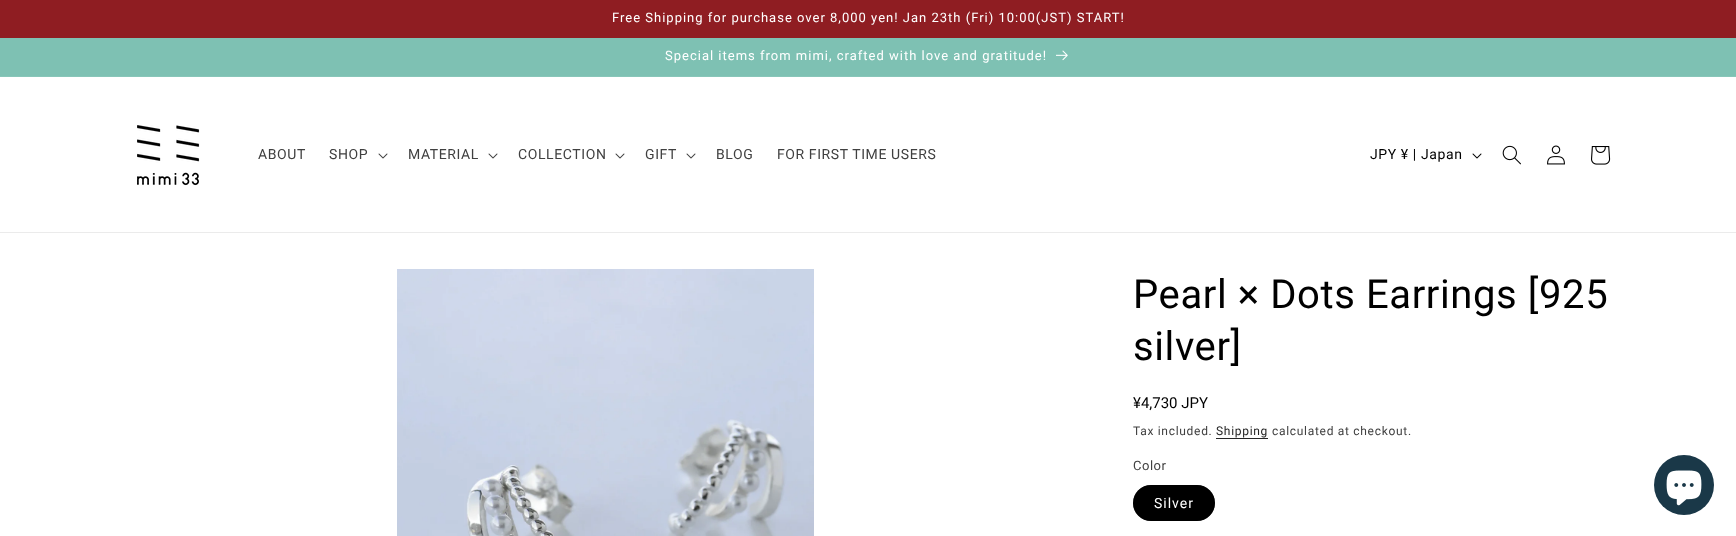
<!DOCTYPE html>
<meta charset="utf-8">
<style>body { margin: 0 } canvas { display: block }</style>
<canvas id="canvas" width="1736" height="536"></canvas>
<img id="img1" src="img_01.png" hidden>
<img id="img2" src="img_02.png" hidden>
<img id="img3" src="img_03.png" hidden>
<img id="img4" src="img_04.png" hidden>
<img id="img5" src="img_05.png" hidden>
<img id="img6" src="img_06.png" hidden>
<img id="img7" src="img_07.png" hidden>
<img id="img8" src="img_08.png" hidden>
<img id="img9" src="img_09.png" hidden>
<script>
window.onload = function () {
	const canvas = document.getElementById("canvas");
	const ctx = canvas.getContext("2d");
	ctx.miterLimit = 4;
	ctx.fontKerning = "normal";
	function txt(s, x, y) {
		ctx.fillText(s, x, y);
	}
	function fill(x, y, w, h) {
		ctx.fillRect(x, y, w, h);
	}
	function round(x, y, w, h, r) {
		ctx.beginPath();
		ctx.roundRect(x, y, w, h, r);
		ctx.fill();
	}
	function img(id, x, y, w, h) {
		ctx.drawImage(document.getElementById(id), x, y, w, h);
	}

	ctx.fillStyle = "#FFFFFF";
	fill(0, 0, 1736, 536);
	ctx.fillStyle = "#8F1D22";
	fill(0, 0, 1736, 38);
	ctx.fillStyle = "#7EC1B3";
	fill(0, 38, 1736, 38);
	ctx.fillStyle = "#88C6B9";
	fill(0, 76, 1736, 1);
	img("img1", 1056, 50, 12, 11);
	ctx.fillStyle = "#EBEBEB";
	fill(0, 232, 1736, 1);
	img("img2", 137, 125, 63, 61);
	img("img3", 378, 153, 10, 6);
	img("img3", 488, 153, 10, 6);
	img("img3", 615, 153, 10, 6);
	img("img3", 686, 153, 10, 6);
	img("img4", 1472, 153, 10, 6);
	img("img5", 1502, 145, 19, 20);
	img("img6", 1547, 145, 18, 20);
	img("img7", 1591, 146, 20, 19);
	img("img8", 397, 269, 417, 267);
	ctx.fillStyle = "#262626";
	fill(1216, 438, 52, 1);
	ctx.fillStyle = "#000000";
	round(1133, 485, 82, 36, 18);
	ctx.beginPath();
	ctx.roundRect(1133.5, 485.5, 81, 35, 17.5);
	ctx.strokeStyle = "rgba(0, 0, 0, 0.55)";
	ctx.stroke();
	ctx.fillStyle = "#1A3848";
	ctx.beginPath();
	ctx.arc(1684, 485, 30, 0, Math.PI * 2);
	ctx.fill();
	img("img9", 1666, 470, 36, 36);
	ctx.letterSpacing = "1px";
	ctx.font = "13px Roboto";
	ctx.fillStyle = "#FFFFFF";
	txt("Free Shipping for purchase over 8,000 yen! Jan 23th (Fri) 10:00(JST) START!", 612, 22);
	txt("Special items from mimi, crafted with love and gratitude!", 665, 60);
	ctx.letterSpacing = "0.6px";
	ctx.font = "14px Roboto";
	ctx.fillStyle = "#404040";
	txt("ABOUT", 258, 159);
	txt("SHOP", 329, 159);
	txt("MATERIAL", 408, 159);
	txt("COLLECTION", 518, 159);
	txt("GIFT", 645, 159);
	txt("BLOG", 716, 159);
	txt("FOR FIRST TIME USERS", 777, 159);
	ctx.fillStyle = "#000000";
	txt("JPY ¥ | Japan", 1370, 159);
	ctx.font = "40px Roboto";
	txt("Pearl × Dots Earrings [925", 1133, 308);
	txt("silver]", 1133, 360);
	ctx.letterSpacing = "0px";
	ctx.font = "15px Roboto";
	txt("¥4,730 JPY", 1133, 408);
	ctx.letterSpacing = "0.7px";
	ctx.font = "12px Roboto";
	ctx.fillStyle = "#404040";
	txt("Tax included.", 1133, 435);
	ctx.fillStyle = "#262626";
	txt("Shipping", 1216, 435);
	ctx.fillStyle = "#404040";
	txt("calculated at checkout.", 1272, 435);
	ctx.letterSpacing = "0.5px";
	ctx.font = "13px Roboto";
	txt("Color", 1133, 470);
	ctx.letterSpacing = "1px";
	ctx.font = "14px Roboto";
	ctx.fillStyle = "#FFFFFF";
	txt("Silver", 1154, 508);
};
</script>
